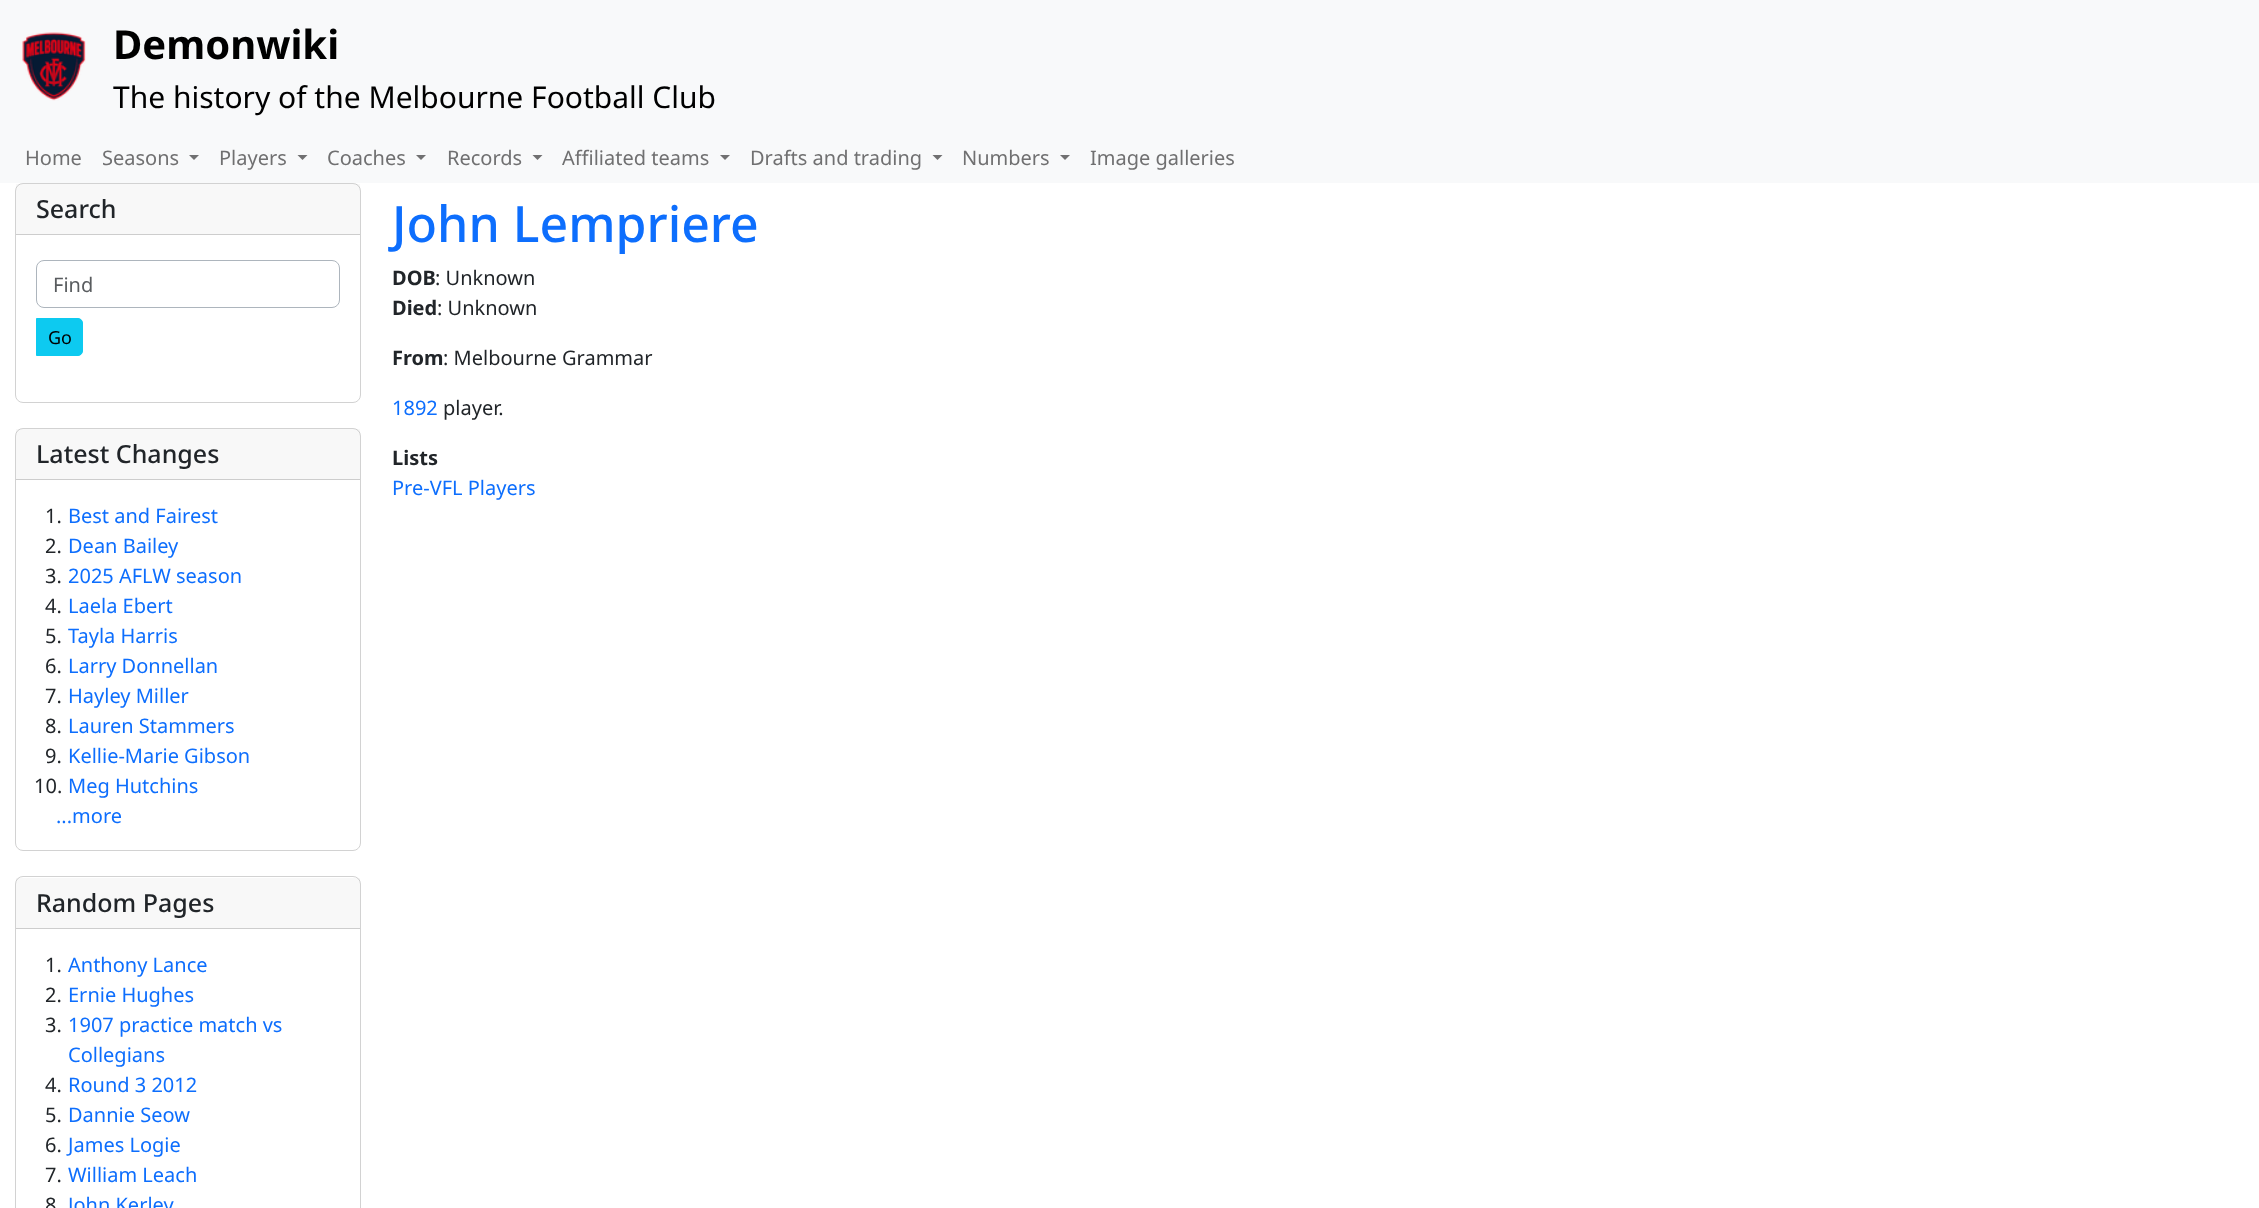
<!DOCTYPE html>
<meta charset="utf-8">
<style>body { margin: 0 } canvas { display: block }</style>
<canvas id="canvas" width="2259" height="1208"></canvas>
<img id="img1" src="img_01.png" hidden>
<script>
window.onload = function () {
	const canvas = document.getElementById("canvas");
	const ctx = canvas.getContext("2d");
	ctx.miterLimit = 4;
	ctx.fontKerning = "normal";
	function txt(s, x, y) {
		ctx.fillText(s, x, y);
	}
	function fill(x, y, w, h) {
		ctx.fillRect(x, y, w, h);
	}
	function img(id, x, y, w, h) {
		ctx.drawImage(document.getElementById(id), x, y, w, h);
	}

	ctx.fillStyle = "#FFFFFF";
	fill(0, 0, 2259, 1208);
	ctx.fillStyle = "#F8F9FA";
	fill(0, 0, 2259, 183);
	img("img1", 22, 32, 64, 69);
	ctx.fillStyle = "#707071";
	ctx.beginPath();
	ctx.moveTo(189, 155);
	ctx.lineTo(199, 155);
	ctx.lineTo(194, 160);
	ctx.closePath();
	ctx.fill();
	ctx.beginPath();
	ctx.moveTo(297.5, 155);
	ctx.lineTo(307.5, 155);
	ctx.lineTo(302.5, 160);
	ctx.closePath();
	ctx.fill();
	ctx.beginPath();
	ctx.moveTo(416, 155);
	ctx.lineTo(426, 155);
	ctx.lineTo(421, 160);
	ctx.closePath();
	ctx.fill();
	ctx.beginPath();
	ctx.moveTo(532.5, 155);
	ctx.lineTo(542.5, 155);
	ctx.lineTo(537.5, 160);
	ctx.closePath();
	ctx.fill();
	ctx.beginPath();
	ctx.moveTo(720, 155);
	ctx.lineTo(730, 155);
	ctx.lineTo(725, 160);
	ctx.closePath();
	ctx.fill();
	ctx.beginPath();
	ctx.moveTo(932.5, 155);
	ctx.lineTo(942.5, 155);
	ctx.lineTo(937.5, 160);
	ctx.closePath();
	ctx.fill();
	ctx.beginPath();
	ctx.moveTo(1060, 155);
	ctx.lineTo(1070, 155);
	ctx.lineTo(1065, 160);
	ctx.closePath();
	ctx.fill();
	ctx.beginPath();
	ctx.roundRect(15.5, 183.5, 345, 219, 7.5);
	ctx.strokeStyle = "#D2D2D2";
	ctx.stroke();
	ctx.fillStyle = "rgba(33, 37, 41, 0.03)";
	fill(16, 184, 344, 50);
	ctx.fillStyle = "#CDCDCD";
	fill(16, 234, 344, 1);
	ctx.beginPath();
	ctx.roundRect(36.5, 260.5, 303, 47, 7.5);
	ctx.strokeStyle = "#ADB5BD";
	ctx.stroke();
	ctx.fillStyle = "#0DCAF0";
	ctx.beginPath();
	ctx.roundRect(36.5, 318.5, 46, 37, [0, 4.5, 4.5, 0]);
	ctx.fill();
	ctx.strokeStyle = "#0DCAF0";
	ctx.stroke();
	ctx.beginPath();
	ctx.roundRect(15.5, 428.5, 345, 422, 7.5);
	ctx.strokeStyle = "#D2D2D2";
	ctx.stroke();
	ctx.fillStyle = "rgba(33, 37, 41, 0.03)";
	fill(16, 429, 344, 50);
	ctx.fillStyle = "#CDCDCD";
	fill(16, 479, 344, 1);
	ctx.beginPath();
	ctx.roundRect(15.5, 876.5, 345, 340, 7.5);
	ctx.stroke();
	ctx.fillStyle = "rgba(33, 37, 41, 0.03)";
	fill(16, 878, 344, 50);
	ctx.fillStyle = "#CDCDCD";
	fill(16, 928, 344, 1);
	ctx.font = "bold 40px Noto Sans";
	ctx.fillStyle = "#000000";
	txt("Demonwiki", 113, 59);
	ctx.font = "30px Noto Sans";
	txt("The history of the Melbourne Football Club", 113, 108);
	ctx.font = "20px Noto Sans";
	ctx.fillStyle = "#707071";
	txt("Home", 25, 165);
	txt("Seasons", 102, 165);
	txt("Players", 219, 165);
	txt("Coaches", 327, 165);
	txt("Records", 447, 165);
	txt("Affiliated teams", 562, 165);
	txt("Drafts and trading", 750, 165);
	txt("Numbers", 962, 165);
	txt("Image galleries", 1090, 165);
	ctx.font = "500 25px Noto Sans";
	ctx.fillStyle = "#212529";
	txt("Search", 36, 218);
	ctx.font = "20px Noto Sans";
	ctx.fillStyle = "#595C5F";
	txt("Find", 53, 292);
	ctx.font = "18px Noto Sans";
	ctx.fillStyle = "#000000";
	txt("Go", 48, 344);
	ctx.font = "500 25px Noto Sans";
	ctx.fillStyle = "#212529";
	txt("Latest Changes", 36, 463);
	ctx.font = "20px Noto Sans";
	txt("1.", 45, 523);
	ctx.fillStyle = "#0D6EFD";
	txt("Best and Fairest", 68, 523);
	ctx.fillStyle = "#212529";
	txt("2.", 45, 553);
	ctx.fillStyle = "#0D6EFD";
	txt("Dean Bailey", 68, 553);
	ctx.fillStyle = "#212529";
	txt("3.", 45, 583);
	ctx.fillStyle = "#0D6EFD";
	txt("2025 AFLW season", 68, 583);
	ctx.fillStyle = "#212529";
	txt("4.", 45, 613);
	ctx.fillStyle = "#0D6EFD";
	txt("Laela Ebert", 68, 613);
	ctx.fillStyle = "#212529";
	txt("5.", 45, 643);
	ctx.fillStyle = "#0D6EFD";
	txt("Tayla Harris", 68, 643);
	ctx.fillStyle = "#212529";
	txt("6.", 45, 673);
	ctx.fillStyle = "#0D6EFD";
	txt("Larry Donnellan", 68, 673);
	ctx.fillStyle = "#212529";
	txt("7.", 45, 703);
	ctx.fillStyle = "#0D6EFD";
	txt("Hayley Miller", 68, 703);
	ctx.fillStyle = "#212529";
	txt("8.", 45, 733);
	ctx.fillStyle = "#0D6EFD";
	txt("Lauren Stammers", 68, 733);
	ctx.fillStyle = "#212529";
	txt("9.", 45, 763);
	ctx.fillStyle = "#0D6EFD";
	txt("Kellie-Marie Gibson", 68, 763);
	ctx.fillStyle = "#212529";
	txt("10.", 34, 793);
	ctx.fillStyle = "#0D6EFD";
	txt("Meg Hutchins", 68, 793);
	txt("...more", 56, 823);
	ctx.font = "500 25px Noto Sans";
	ctx.fillStyle = "#212529";
	txt("Random Pages", 36, 912);
	ctx.font = "20px Noto Sans";
	txt("1.", 45, 972);
	ctx.fillStyle = "#0D6EFD";
	txt("Anthony Lance", 68, 972);
	ctx.fillStyle = "#212529";
	txt("2.", 45, 1002);
	ctx.fillStyle = "#0D6EFD";
	txt("Ernie Hughes", 68, 1002);
	ctx.fillStyle = "#212529";
	txt("3.", 45, 1032);
	ctx.fillStyle = "#0D6EFD";
	txt("1907 practice match vs", 68, 1032);
	txt("Collegians", 68, 1062);
	ctx.fillStyle = "#212529";
	txt("4.", 45, 1092);
	ctx.fillStyle = "#0D6EFD";
	txt("Round 3 2012", 68, 1092);
	ctx.fillStyle = "#212529";
	txt("5.", 45, 1122);
	ctx.fillStyle = "#0D6EFD";
	txt("Dannie Seow", 68, 1122);
	ctx.fillStyle = "#212529";
	txt("6.", 45, 1152);
	ctx.fillStyle = "#0D6EFD";
	txt("James Logie", 68, 1152);
	ctx.fillStyle = "#212529";
	txt("7.", 45, 1182);
	ctx.fillStyle = "#0D6EFD";
	txt("William Leach", 68, 1182);
	ctx.fillStyle = "#212529";
	txt("8", 45, 1212);
	ctx.fillStyle = "#0D6EFD";
	txt("John Kerley", 68, 1212);
	ctx.font = "500 50px Noto Sans";
	txt("John Lempriere", 392, 242);
	ctx.font = "bold 20px Noto Sans";
	ctx.fillStyle = "#212529";
	txt("DOB", 392, 285);
	ctx.font = "20px Noto Sans";
	txt(": Unknown", 435, 285);
	ctx.font = "bold 20px Noto Sans";
	txt("Died", 392, 315);
	ctx.font = "20px Noto Sans";
	txt(": Unknown", 437, 315);
	ctx.font = "bold 20px Noto Sans";
	txt("From", 392, 365);
	ctx.font = "20px Noto Sans";
	txt(": Melbourne Grammar", 443, 365);
	ctx.fillStyle = "#0D6EFD";
	txt("1892", 392, 415);
	ctx.fillStyle = "#212529";
	txt("player.", 443, 415);
	ctx.font = "bold 20px Noto Sans";
	txt("Lists", 392, 465);
	ctx.font = "20px Noto Sans";
	ctx.fillStyle = "#0D6EFD";
	txt("Pre-VFL Players", 392, 495);
};
</script>
